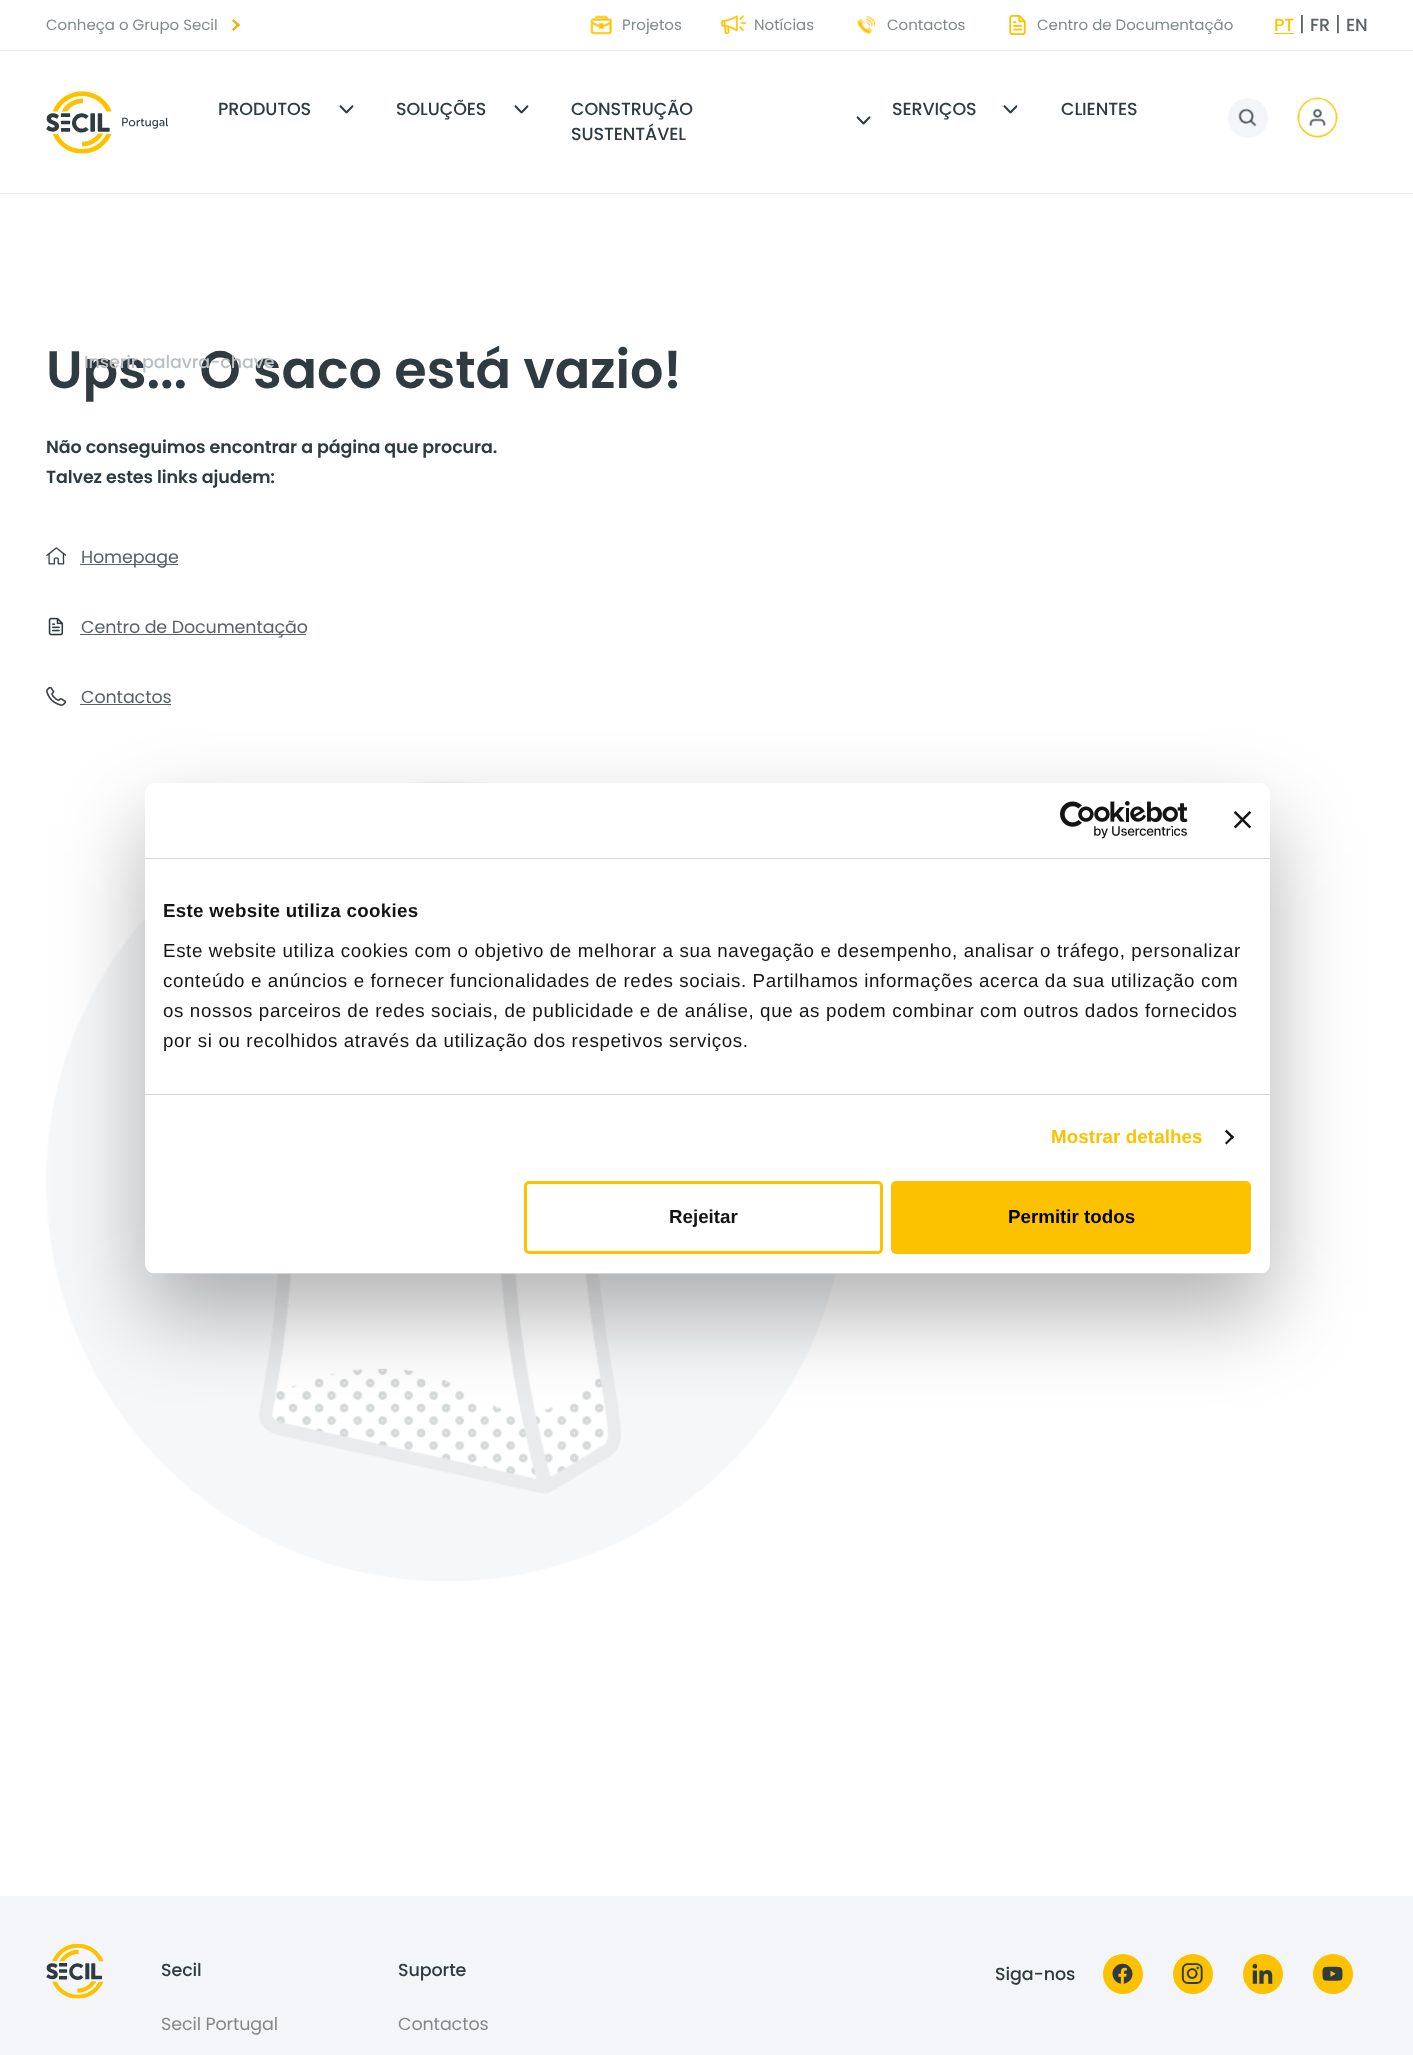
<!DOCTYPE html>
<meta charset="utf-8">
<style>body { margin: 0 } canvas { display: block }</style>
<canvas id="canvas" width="1413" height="2055"></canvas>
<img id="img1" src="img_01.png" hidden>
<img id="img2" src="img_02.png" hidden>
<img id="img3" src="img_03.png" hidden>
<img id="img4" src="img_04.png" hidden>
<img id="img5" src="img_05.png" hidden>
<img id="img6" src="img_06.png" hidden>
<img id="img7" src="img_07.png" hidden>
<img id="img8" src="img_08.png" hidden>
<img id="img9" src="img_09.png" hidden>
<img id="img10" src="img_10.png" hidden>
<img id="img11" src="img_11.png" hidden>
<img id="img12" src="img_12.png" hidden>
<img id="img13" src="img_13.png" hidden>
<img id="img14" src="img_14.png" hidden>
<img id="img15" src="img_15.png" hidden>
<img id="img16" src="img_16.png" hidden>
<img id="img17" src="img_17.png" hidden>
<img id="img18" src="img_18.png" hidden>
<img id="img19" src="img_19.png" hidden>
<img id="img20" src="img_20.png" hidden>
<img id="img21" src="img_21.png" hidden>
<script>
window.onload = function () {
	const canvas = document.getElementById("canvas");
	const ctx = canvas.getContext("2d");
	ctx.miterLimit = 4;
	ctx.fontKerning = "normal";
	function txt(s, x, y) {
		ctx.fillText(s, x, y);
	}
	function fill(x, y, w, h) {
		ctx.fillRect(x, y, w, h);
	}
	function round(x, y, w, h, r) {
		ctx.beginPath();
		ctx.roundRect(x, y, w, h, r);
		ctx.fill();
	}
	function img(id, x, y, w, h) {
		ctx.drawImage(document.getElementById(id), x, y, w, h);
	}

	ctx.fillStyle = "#FFFFFF";
	fill(0, 0, 1413, 2055);
	ctx.fillStyle = "#EAEBEC";
	fill(0, 193, 1413, 1);
	fill(0, 50, 1413, 1);
	ctx.fillStyle = "#F2B20D";
	ctx.beginPath();
	ctx.moveTo(233.5, 19);
	ctx.lineTo(240, 25);
	ctx.lineTo(238, 27);
	ctx.lineTo(232, 20.5);
	ctx.closePath();
	ctx.fill();
	ctx.beginPath();
	ctx.moveTo(238, 23);
	ctx.lineTo(240, 25);
	ctx.lineTo(233.5, 31);
	ctx.lineTo(232, 29.5);
	ctx.closePath();
	ctx.fill();
	img("img1", 590, 15, 22, 20);
	img("img2", 721, 15, 25, 20);
	img("img3", 857, 16, 19, 18);
	img("img4", 1009, 15, 17, 20);
	ctx.fillStyle = "#FCC200";
	fill(1274, 33, 20, 1);
	img("img5", 46, 91, 122, 63);
	img("img6", 338, 105, 16, 9);
	img("img6", 513, 105, 16, 9);
	img("img7", 856, 116, 16, 9);
	img("img8", 1002, 105, 16, 9);
	ctx.fillStyle = "#F4F5F8";
	ctx.beginPath();
	ctx.arc(1248, 118, 20, 0, Math.PI * 2);
	ctx.fill();
	img("img9", 1238, 108, 19, 19);
	img("img10", 1297, 97, 41, 41);
	img("img11", 46, 547, 20, 18);
	ctx.fillStyle = "#596266";
	fill(80, 564, 98, 1);
	img("img12", 48, 617, 16, 19);
	fill(80, 634, 226, 1);
	img("img13", 46, 687, 20, 19);
	fill(80, 704, 91, 1);
	img("img14", 46, 781, 791, 800);
	ctx.fillStyle = "#F4F5F8";
	fill(0, 1896, 1413, 159);
	img("img15", 46, 1944, 58, 55);
	ctx.fillStyle = "#FCC200";
	ctx.beginPath();
	ctx.arc(1123, 1974, 20, 0, Math.PI * 2);
	ctx.fill();
	img("img16", 1112, 1963, 21, 21);
	ctx.beginPath();
	ctx.arc(1193, 1974, 20, 0, Math.PI * 2);
	ctx.fill();
	img("img17", 1181, 1963, 22, 21);
	ctx.beginPath();
	ctx.arc(1263, 1974, 20, 0, Math.PI * 2);
	ctx.fill();
	img("img18", 1252, 1963, 21, 21);
	ctx.beginPath();
	ctx.arc(1333, 1974, 20, 0, Math.PI * 2);
	ctx.fill();
	img("img19", 1322, 1966, 21, 15);
	ctx.fillStyle = "rgba(0, 0, 0, 0.3)";
	ctx.filter = "blur(42.5px)";
	ctx.beginPath();
	ctx.roundRect(145, 823, 1125, 491, 10);
	ctx.fill();
	ctx.filter = "none";
	ctx.fillStyle = "#FFFFFF";
	round(145, 783, 1125, 491, 10);
	ctx.fillStyle = "#D6D6D6";
	fill(145, 858, 1125, 1);
	img("img20", 1060, 801, 128, 38);
	img("img21", 1234, 811, 17, 18);
	fill(145, 1094, 1125, 1);
	ctx.fillStyle = "#141414";
	ctx.beginPath();
	ctx.moveTo(1226.5, 1129.5);
	ctx.lineTo(1234, 1137);
	ctx.lineTo(1232.5, 1139);
	ctx.lineTo(1225, 1131.5);
	ctx.closePath();
	ctx.fill();
	ctx.beginPath();
	ctx.moveTo(1232.5, 1135.5);
	ctx.lineTo(1234, 1137);
	ctx.lineTo(1226.5, 1144.5);
	ctx.lineTo(1225, 1143);
	ctx.closePath();
	ctx.fill();
	ctx.save();
	ctx.beginPath();
	ctx.roundRect(145, 783, 1125, 491, 10);
	ctx.clip();
	ctx.fillStyle = "#D6D6D6";
	fill(145, 1273, 1125, 1);
	ctx.restore();
	ctx.beginPath();
	ctx.roundRect(525.5, 1182.5, 356, 70, 3.5);
	ctx.strokeStyle = "#FCC200";
	ctx.lineWidth = 3;
	ctx.stroke();
	ctx.fillStyle = "#FCC200";
	ctx.beginPath();
	ctx.roundRect(892.5, 1182.5, 357, 70, 3.5);
	ctx.fill();
	ctx.stroke();
	ctx.font = "15px Poppins";
	ctx.fillStyle = "#82898C";
	txt("Conheça o Grupo Secil", 46, 30);
	txt("Projetos", 622, 30);
	txt("Notícias", 754, 30);
	txt("Contactos", 887, 30);
	txt("Centro de Documentação", 1037, 30);
	ctx.letterSpacing = "-0.1px";
	ctx.font = "500 17.5px Poppins";
	ctx.fillStyle = "#FCC200";
	txt("PT", 1274, 31);
	ctx.letterSpacing = "0px";
	ctx.font = "20px Poppins";
	ctx.fillStyle = "#596266";
	txt("|", 1299, 31);
	ctx.letterSpacing = "-0.1px";
	ctx.font = "500 17.5px Poppins";
	txt("FR", 1310, 31);
	ctx.letterSpacing = "0px";
	ctx.font = "20px Poppins";
	txt("|", 1335, 31);
	ctx.letterSpacing = "-0.1px";
	ctx.font = "500 17.5px Poppins";
	txt("EN", 1346, 31);
	ctx.fillStyle = "#2F3B40";
	txt("PRODUTOS", 218, 115);
	txt("SOLUÇÕES", 396, 115);
	txt("CONSTRUÇÃO", 571, 115);
	txt("SUSTENTÁVEL", 571, 140);
	txt("SERVIÇOS", 892, 115);
	txt("CLIENTES", 1061, 115);
	ctx.font = "600 52.5px Poppins";
	txt("Ups... O saco está vazio!", 46, 388);
	ctx.font = "500 17.5px Poppins";
	ctx.fillStyle = "#BCBFC1";
	txt("Inserir palavra-chave", 84, 368);
	ctx.font = "600 17.5px Poppins";
	ctx.fillStyle = "#2F3B40";
	txt("Não conseguimos encontrar a página que procura.", 46, 453);
	txt("Talvez estes links ajudem:", 46, 483);
	ctx.font = "17.5px Poppins";
	ctx.fillStyle = "#596266";
	txt("Homepage", 81, 563);
	txt("Centro de Documentação", 81, 633);
	txt("Contactos", 81, 703);
	ctx.font = "500 17.5px Poppins";
	ctx.fillStyle = "#2F3B40";
	txt("Secil", 161, 1976);
	ctx.font = "17.5px Poppins";
	ctx.fillStyle = "#82898C";
	txt("Secil Portugal", 161, 2030);
	ctx.font = "500 17.5px Poppins";
	ctx.fillStyle = "#2F3B40";
	txt("Suporte", 398, 1976);
	ctx.font = "17.5px Poppins";
	ctx.fillStyle = "#82898C";
	txt("Contactos", 398, 2030);
	ctx.font = "500 17.5px Poppins";
	ctx.fillStyle = "#2F3B40";
	txt("Siga-nos", 995, 1980);
	ctx.letterSpacing = "0.3px";
	ctx.font = "bold 18.75px Liberation Sans";
	ctx.fillStyle = "#141414";
	txt("Este website utiliza cookies", 163, 917);
	ctx.letterSpacing = "0.62px";
	ctx.font = "18.75px Liberation Sans";
	txt("Este website utiliza cookies com o objetivo de melhorar a sua navegação e desempenho, analisar o tráfego, personalizar", 163, 957);
	txt("conteúdo e anúncios e fornecer funcionalidades de redes sociais. Partilhamos informações acerca da sua utilização com", 163, 987);
	txt("os nossos parceiros de redes sociais, de publicidade e de análise, que as podem combinar com outros dados fornecidos", 163, 1017);
	txt("por si ou recolhidos através da utilização dos respetivos serviços.", 163, 1047);
	ctx.letterSpacing = "0.1px";
	ctx.font = "bold 18.75px Liberation Sans";
	ctx.fillStyle = "#FCC200";
	txt("Mostrar detalhes", 1051, 1143);
	ctx.letterSpacing = "0px";
	ctx.fillStyle = "#141414";
	txt("Rejeitar", 669, 1223);
	ctx.fillStyle = "#000000";
	txt("Permitir todos", 1008, 1223);
};
</script>
